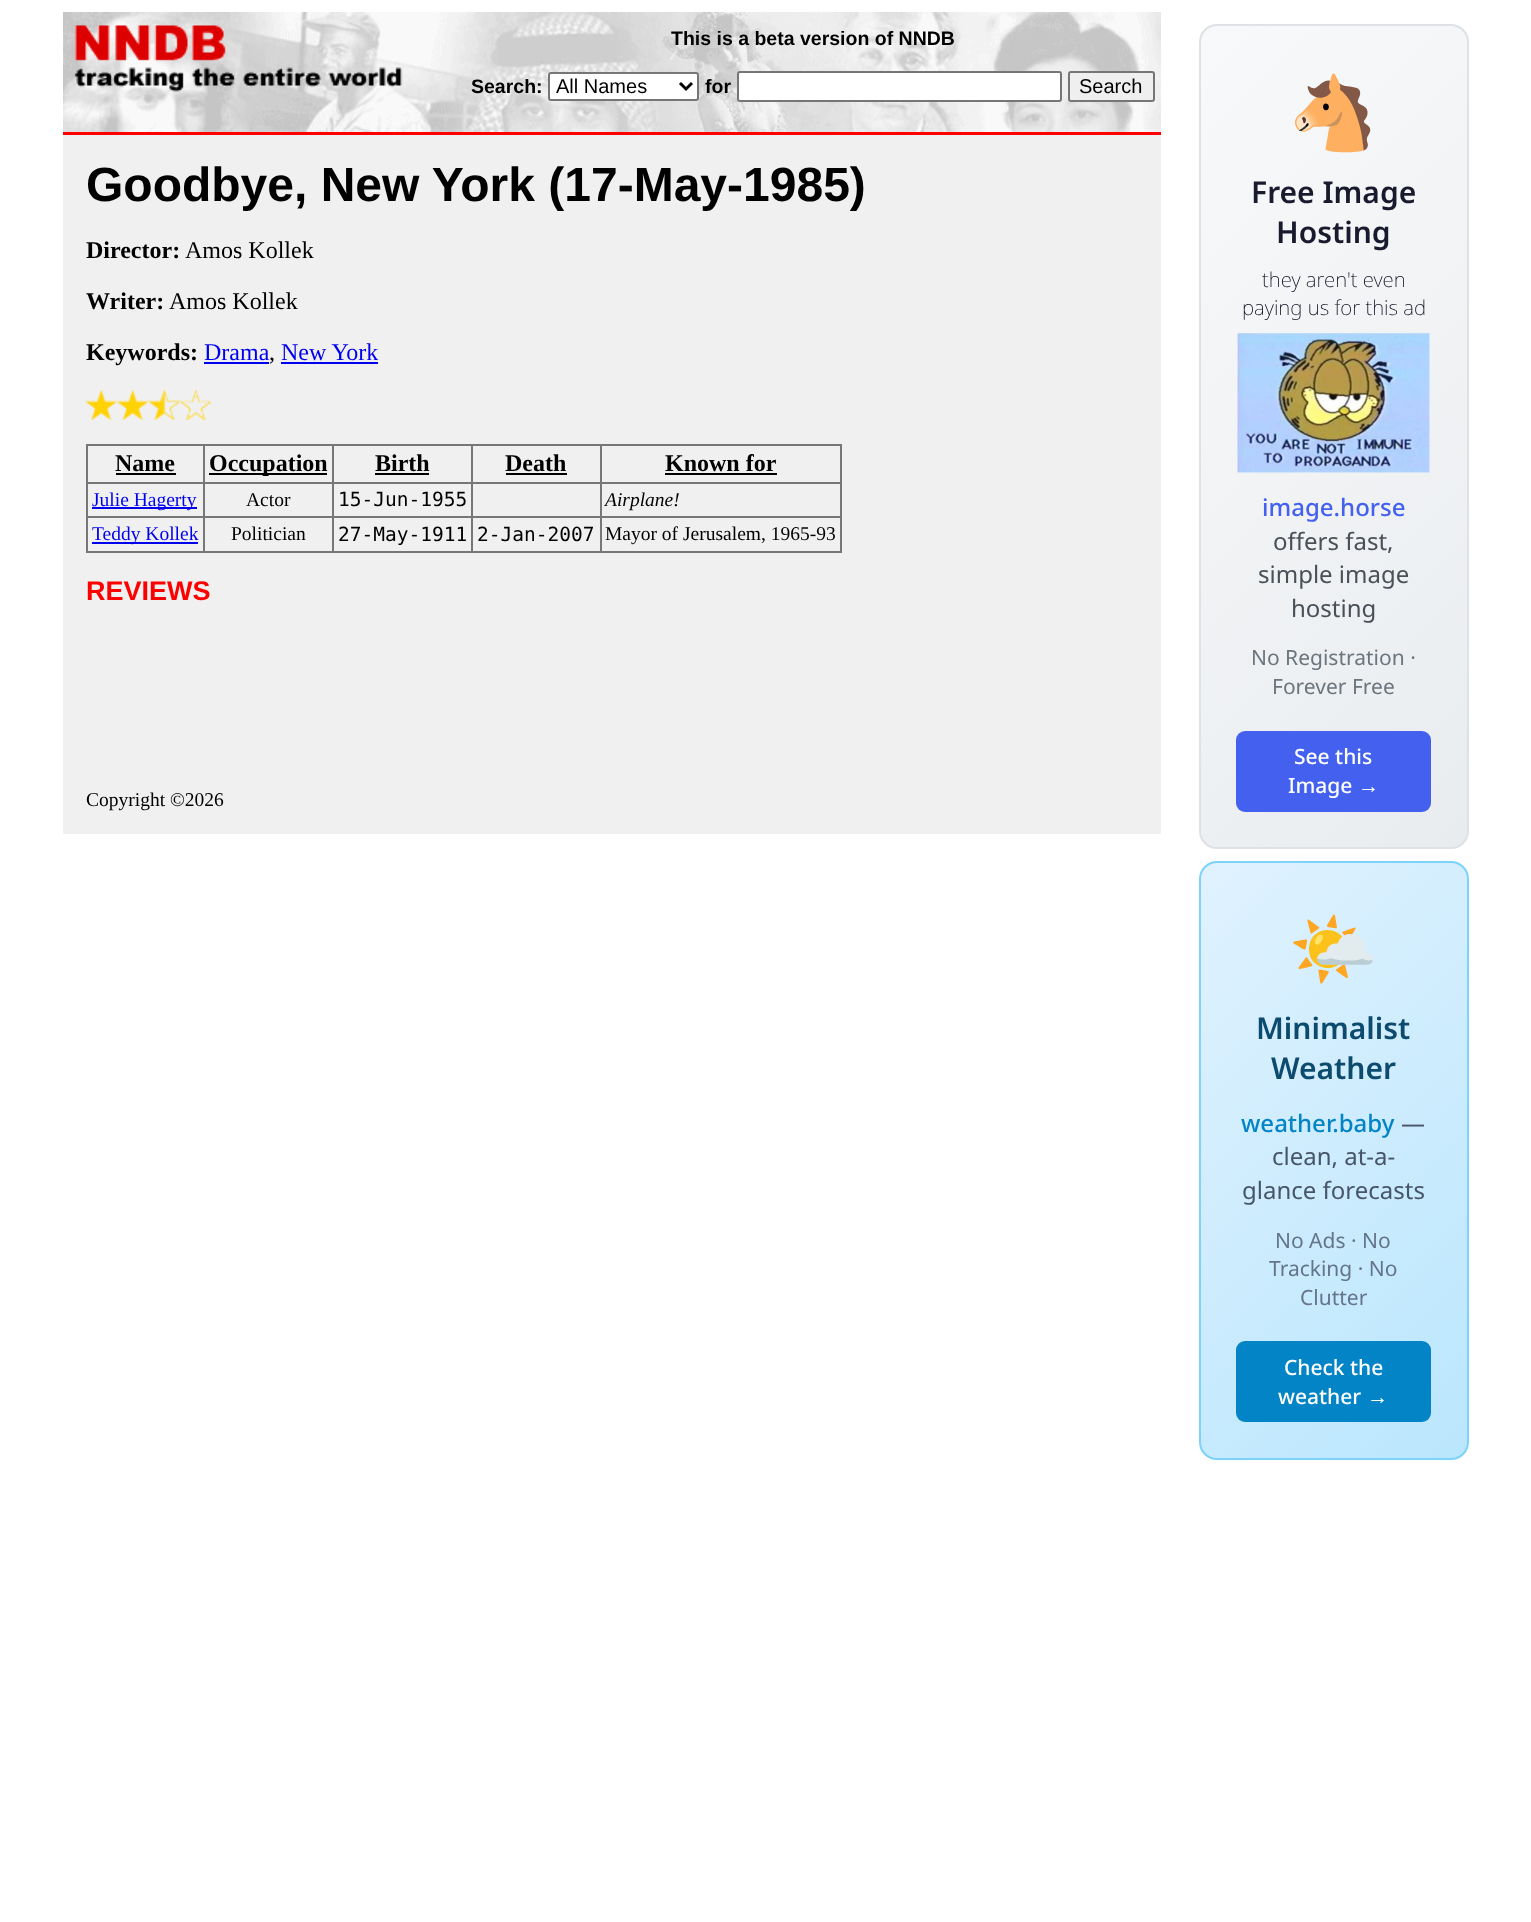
<!DOCTYPE html>
<meta charset="utf-8">
<style>body { margin: 0 } canvas { display: block }</style>
<canvas id="canvas" width="1531" height="1922"></canvas>
<img id="img1" src="img_01.png" hidden>
<img id="img2" src="img_02.png" hidden>
<img id="img3" src="img_03.png" hidden>
<img id="img4" src="img_04.png" hidden>
<img id="img5" src="img_05.png" hidden>
<img id="img6" src="img_06.png" hidden>
<img id="img7" src="img_07.png" hidden>
<script>
window.onload = function () {
	const canvas = document.getElementById("canvas");
	const ctx = canvas.getContext("2d");
	ctx.miterLimit = 4;
	ctx.fontKerning = "normal";
	function txt(s, x, y) {
		ctx.fillText(s, x, y);
	}
	function fill(x, y, w, h) {
		ctx.fillRect(x, y, w, h);
	}
	function round(x, y, w, h, r) {
		ctx.beginPath();
		ctx.roundRect(x, y, w, h, r);
		ctx.fill();
	}
	function img(id, x, y, w, h) {
		ctx.drawImage(document.getElementById(id), x, y, w, h);
	}
	let gradient;

	ctx.fillStyle = "#FFFFFF";
	fill(0, 0, 1531, 1922);
	img("img1", 63, 12, 1098, 120);
	img("img2", 74, 25, 329, 67);
	ctx.beginPath();
	ctx.roundRect(549, 73, 149, 27, 2);
	ctx.fill();
	ctx.strokeStyle = "#767676";
	ctx.lineWidth = 2;
	ctx.stroke();
	ctx.beginPath();
	ctx.moveTo(680, 83);
	ctx.lineTo(686, 89);
	ctx.lineTo(692, 83);
	ctx.strokeStyle = "#000000";
	ctx.lineWidth = 3;
	ctx.stroke();
	ctx.beginPath();
	ctx.roundRect(738, 72, 323, 29, 2);
	ctx.fill();
	ctx.strokeStyle = "#767676";
	ctx.lineWidth = 2;
	ctx.stroke();
	ctx.fillStyle = "#EFEFEF";
	ctx.beginPath();
	ctx.roundRect(1069, 72, 85, 29, 2);
	ctx.fill();
	ctx.stroke();
	ctx.fillStyle = "#FF0000";
	fill(63, 132, 1098, 3);
	ctx.fillStyle = "#F0F0F0";
	fill(63, 135, 1098, 699);
	ctx.fillStyle = "#0000EE";
	fill(204, 362, 65, 2);
	fill(281, 362, 97, 2);
	img("img3", 85, 390, 32, 30);
	img("img4", 117, 390, 32, 30);
	img("img5", 148, 390, 32, 30);
	img("img6", 180, 390, 32, 30);
	ctx.fillStyle = "#777777";
	fill(86, 444, 756, 2);
	fill(840, 444, 2, 108);
	fill(86, 551, 756, 2);
	fill(86, 444, 2, 108);
	ctx.fillStyle = "#000000";
	fill(116, 473, 60, 2);
	ctx.fillStyle = "#777777";
	fill(600, 482, 242, 2);
	fill(600, 516, 242, 2);
	fill(600, 516, 2, 36);
	fill(471, 516, 131, 2);
	fill(600, 482, 2, 36);
	fill(471, 482, 131, 2);
	fill(471, 516, 2, 36);
	fill(332, 516, 141, 2);
	fill(471, 482, 2, 36);
	fill(332, 482, 141, 2);
	fill(332, 516, 2, 36);
	fill(203, 516, 130, 2);
	fill(332, 482, 2, 36);
	fill(203, 482, 130, 2);
	fill(203, 516, 2, 36);
	fill(86, 516, 118, 2);
	fill(203, 482, 2, 36);
	fill(86, 482, 118, 2);
	fill(203, 444, 2, 39);
	ctx.fillStyle = "#000000";
	fill(209, 473, 118, 2);
	ctx.fillStyle = "#777777";
	fill(332, 444, 2, 39);
	ctx.fillStyle = "#000000";
	fill(375, 473, 54, 2);
	ctx.fillStyle = "#777777";
	fill(471, 444, 2, 39);
	ctx.fillStyle = "#000000";
	fill(506, 473, 61, 2);
	ctx.fillStyle = "#777777";
	fill(600, 444, 2, 39);
	ctx.fillStyle = "#000000";
	fill(665, 473, 112, 2);
	ctx.fillStyle = "#0000EE";
	fill(92, 507, 105, 2);
	fill(92, 542, 106, 2);
	ctx.save();
	ctx.beginPath();
	ctx.roundRect(1199, 24, 270, 825, 18);
	ctx.clip();
	gradient = ctx.createLinearGradient(1061, 164, 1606, 709);
	gradient.addColorStop(0, "#F8F9FA");
	gradient.addColorStop(1, "#E9ECEF");
	ctx.fillStyle = gradient;
	fill(1200, 26, 267, 822);
	ctx.restore();
	ctx.beginPath();
	ctx.roundRect(1200, 25, 268, 823, 17);
	ctx.strokeStyle = "#DEE2E6";
	ctx.stroke();
	img("img7", 1237, 333, 193, 140);
	ctx.fillStyle = "#4361EE";
	round(1236, 731, 195, 81, 9);
	ctx.save();
	ctx.beginPath();
	ctx.roundRect(1199, 861, 270, 599, 18);
	ctx.clip();
	gradient = ctx.createLinearGradient(1118, 945, 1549, 1376);
	gradient.addColorStop(0, "#E0F2FE");
	gradient.addColorStop(1, "#BAE6FD");
	ctx.fillStyle = gradient;
	fill(1200, 863, 267, 595);
	ctx.restore();
	ctx.beginPath();
	ctx.roundRect(1200, 862, 268, 597, 17);
	ctx.strokeStyle = "#7DD3FC";
	ctx.stroke();
	ctx.fillStyle = "#0284C7";
	round(1236, 1341, 195, 81, 9);
	ctx.font = "bold 19.5px Liberation Sans";
	ctx.fillStyle = "#000000";
	txt("This is a beta version of NNDB", 671, 45);
	txt("Search:", 471, 93);
	ctx.font = "20px Liberation Sans";
	txt("All Names", 556, 93);
	ctx.font = "bold 19.5px Liberation Sans";
	txt("for", 705, 93);
	ctx.font = "20px Liberation Sans";
	txt("Search", 1079, 93);
	ctx.font = "bold 48px Liberation Sans";
	txt("Goodbye, New York (17-May-1985)", 86, 201);
	ctx.font = "bold 24px Liberation Serif";
	txt("Director:", 86, 258);
	ctx.font = "24px Liberation Serif";
	txt("Amos Kollek", 185, 258);
	ctx.font = "bold 24px Liberation Serif";
	txt("Writer:", 86, 309);
	ctx.font = "24px Liberation Serif";
	txt("Amos Kollek", 169, 309);
	ctx.font = "bold 24px Liberation Serif";
	txt("Keywords:", 86, 360);
	ctx.font = "24px Liberation Serif";
	ctx.fillStyle = "#0000EE";
	txt("Drama", 204, 360);
	ctx.fillStyle = "#000000";
	txt(",", 269, 360);
	ctx.fillStyle = "#0000EE";
	txt("New York", 281, 360);
	ctx.font = "bold 24px Liberation Serif";
	ctx.fillStyle = "#000000";
	txt("Name", 115, 471);
	txt("Occupation", 209, 471);
	txt("Birth", 375, 471);
	txt("Death", 505, 471);
	txt("Known for", 665, 471);
	ctx.font = "19.5px Liberation Serif";
	ctx.fillStyle = "#0000EE";
	txt("Julie Hagerty", 92, 506);
	ctx.fillStyle = "#000000";
	txt("Actor", 246, 506);
	ctx.font = "19.5px DejaVu Sans Mono";
	txt("15-Jun-1955", 338, 506);
	ctx.font = "italic 19.5px Liberation Serif";
	txt("Airplane!", 605, 506);
	ctx.font = "19.5px Liberation Serif";
	ctx.fillStyle = "#0000EE";
	txt("Teddy Kollek", 92, 540);
	ctx.fillStyle = "#000000";
	txt("Politician", 231, 540);
	ctx.font = "19.5px DejaVu Sans Mono";
	txt("27-May-1911", 338, 541);
	txt("2-Jan-2007", 477, 541);
	ctx.font = "19.5px Liberation Serif";
	txt("Mayor of Jerusalem, 1965-93", 605, 540);
	ctx.font = "bold 27px Liberation Sans";
	ctx.fillStyle = "#FF0000";
	txt("REVIEWS", 86, 600);
	ctx.font = "19.5px Liberation Serif";
	ctx.fillStyle = "#000000";
	txt("Copyright ©2026", 86, 806);
	ctx.font = "72px Noto Color Emoji";
	ctx.fillStyle = "#0000EE";
	txt("🐴", 1288, 138);
	ctx.font = "600 30px Noto Sans";
	ctx.fillStyle = "#1A1A2E";
	txt("Free Image", 1251, 203);
	txt("Hosting", 1276, 243);
	ctx.font = "200 20.5px Noto Sans";
	ctx.fillStyle = "#0A0A1E";
	txt("they aren't even", 1262, 287);
	txt("paying us for this ad", 1242, 315);
	ctx.font = "500 24px Noto Sans";
	ctx.fillStyle = "#4361EE";
	txt("image.horse", 1262, 516);
	ctx.font = "24px Noto Sans";
	ctx.fillStyle = "#495057";
	txt("offers fast,", 1273, 550);
	txt("simple image", 1258, 583);
	txt("hosting", 1291, 617);
	ctx.font = "21px Noto Sans";
	ctx.fillStyle = "#6C757D";
	txt("No Registration ·", 1251, 665);
	txt("Forever Free", 1272, 694);
	ctx.font = "500 21px Noto Sans";
	ctx.fillStyle = "#FFFFFF";
	txt("See this", 1294, 764);
	txt("Image", 1288, 793);
	ctx.font = "21px Liberation Sans";
	txt("→", 1358, 793);
	ctx.font = "72px Noto Color Emoji";
	ctx.fillStyle = "#0000EE";
	txt("🌤️", 1288, 974);
	ctx.font = "600 30px Noto Sans";
	ctx.fillStyle = "#0C4A6E";
	txt("Minimalist", 1256, 1039);
	txt("Weather", 1271, 1079);
	ctx.font = "500 24px Noto Sans";
	ctx.fillStyle = "#0284C7";
	txt("weather.baby", 1241, 1132);
	ctx.font = "24px Noto Sans";
	ctx.fillStyle = "#475569";
	txt("—", 1401, 1132);
	txt("clean, at-a-", 1272, 1165);
	txt("glance forecasts", 1242, 1199);
	ctx.font = "21px Noto Sans";
	ctx.fillStyle = "#64748B";
	txt("No Ads · No", 1275, 1248);
	txt("Tracking · No", 1269, 1276);
	txt("Clutter", 1300, 1305);
	ctx.font = "500 21px Noto Sans";
	ctx.fillStyle = "#FFFFFF";
	txt("Check the", 1284, 1375);
	txt("weather", 1278, 1404);
	ctx.font = "21px Liberation Sans";
	txt("→", 1367, 1404);
};
</script>
